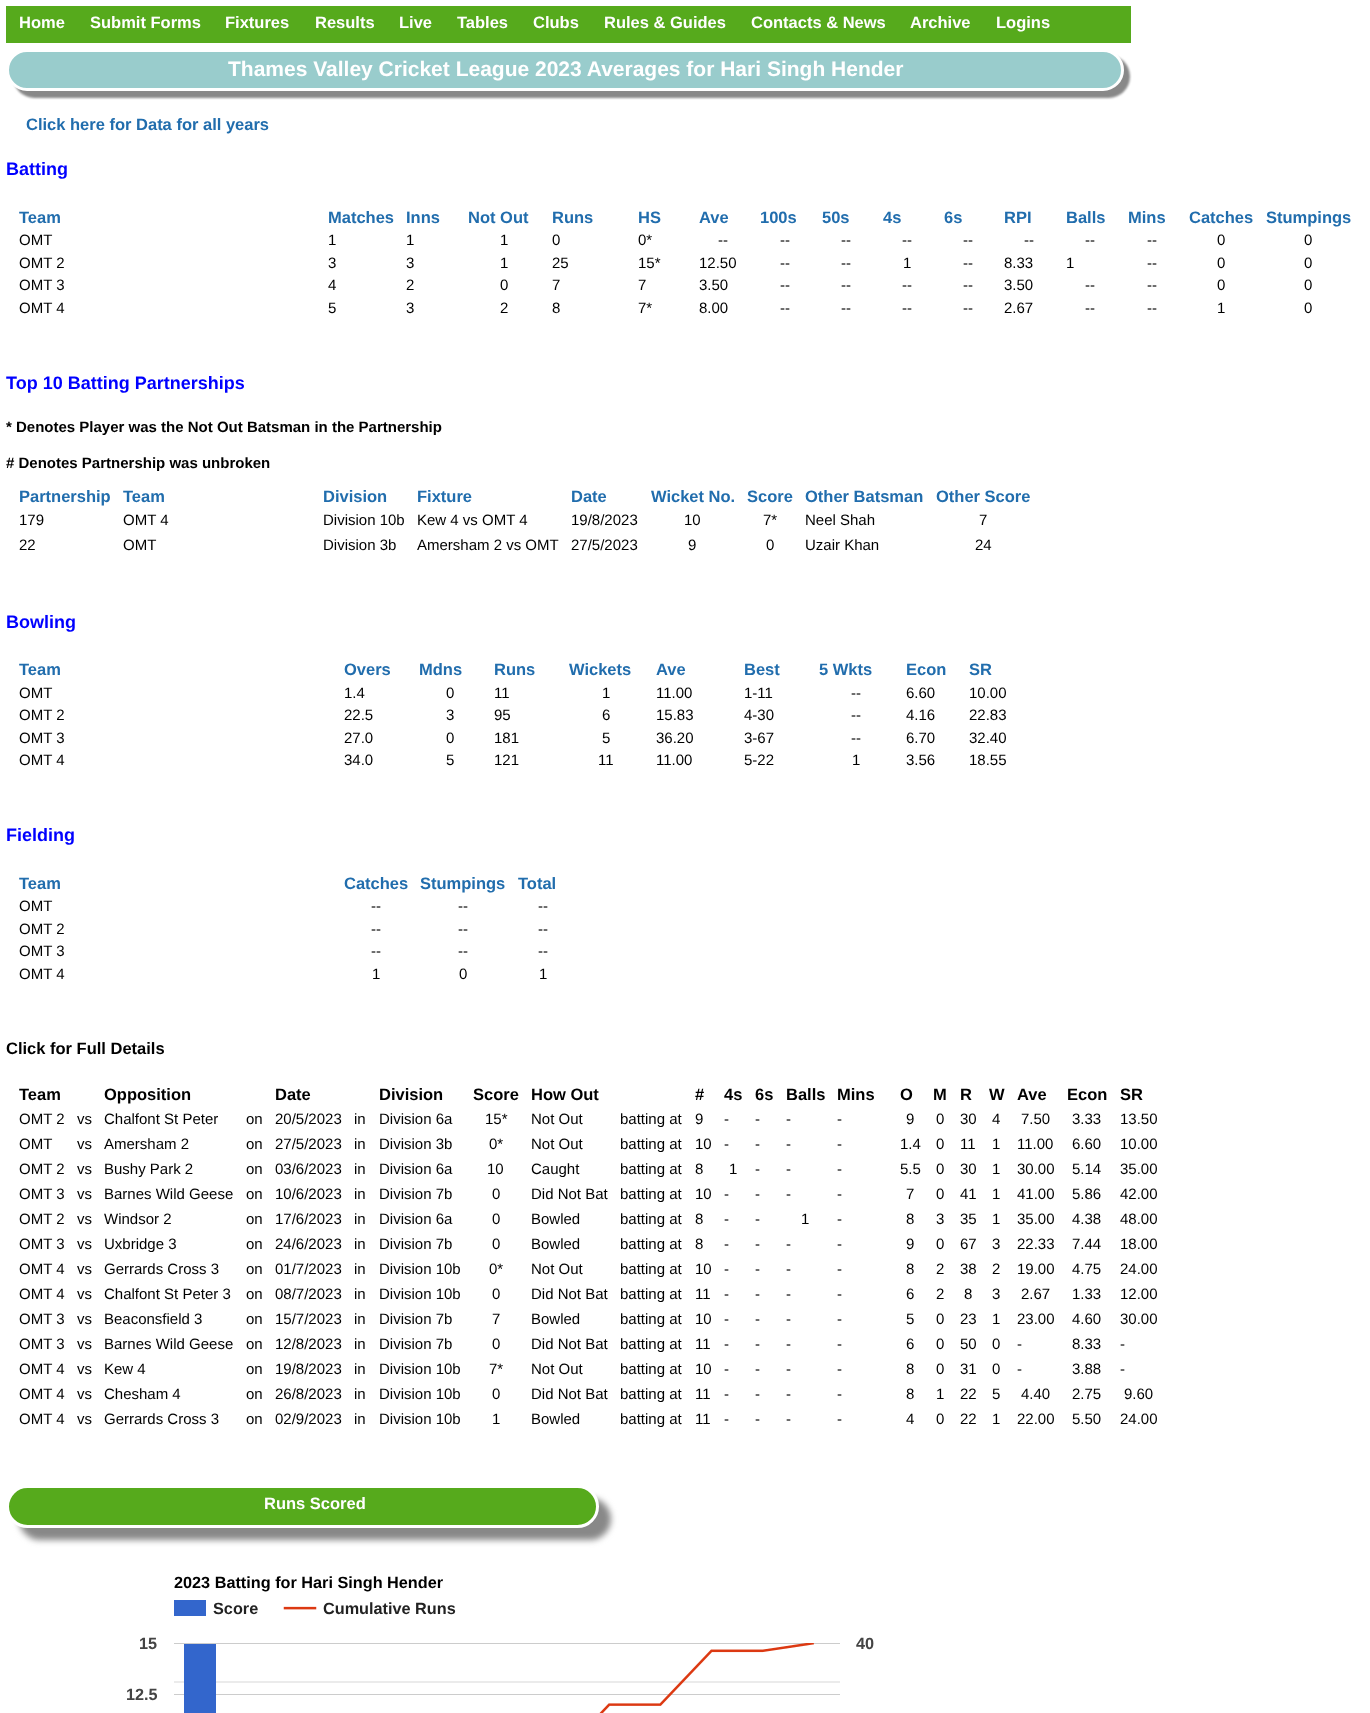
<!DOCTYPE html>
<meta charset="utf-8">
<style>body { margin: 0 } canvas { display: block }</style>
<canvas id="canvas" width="1370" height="1713"></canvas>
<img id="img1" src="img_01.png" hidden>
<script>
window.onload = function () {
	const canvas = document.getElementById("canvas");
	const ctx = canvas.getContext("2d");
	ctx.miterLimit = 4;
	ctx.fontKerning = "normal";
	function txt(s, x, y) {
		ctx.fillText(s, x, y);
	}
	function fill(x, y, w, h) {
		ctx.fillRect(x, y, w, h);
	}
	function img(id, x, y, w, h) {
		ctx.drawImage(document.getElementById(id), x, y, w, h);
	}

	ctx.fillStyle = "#FFFFFF";
	fill(0, 0, 1370, 1713);
	ctx.fillStyle = "#56AA1C";
	fill(6, 6, 1125, 37);
	ctx.fillStyle = "#888888";
	ctx.filter = "blur(1px)";
	ctx.beginPath();
	ctx.roundRect(13, 55, 1117, 43, 21.5);
	ctx.fill();
	ctx.filter = "none";
	ctx.fillStyle = "#99CCCC";
	ctx.beginPath();
	ctx.roundRect(7.5, 50.5, 1115, 39, 19.5);
	ctx.fill();
	ctx.strokeStyle = "#FFFFFF";
	ctx.lineWidth = 3;
	ctx.stroke();
	ctx.fillStyle = "#888888";
	ctx.filter = "blur(3px)";
	ctx.beginPath();
	ctx.roundRect(19, 1498, 592, 42, 21);
	ctx.fill();
	ctx.filter = "none";
	ctx.fillStyle = "#56AA1C";
	ctx.beginPath();
	ctx.roundRect(7.5, 1486.5, 590, 40, 20);
	ctx.fill();
	ctx.stroke();
	img("img1", 174, 1600, 666, 113);
	ctx.font = "bold 16.5px Liberation Sans";
	ctx.fillStyle = "#FFFFFF";
	txt("Home", 19, 28);
	txt("Submit Forms", 90, 28);
	txt("Fixtures", 225, 28);
	txt("Results", 315, 28);
	txt("Live", 399, 28);
	txt("Tables", 457, 28);
	txt("Clubs", 533, 28);
	txt("Rules & Guides", 604, 28);
	txt("Contacts & News", 751, 28);
	txt("Archive", 910, 28);
	txt("Logins", 996, 28);
	ctx.font = "bold 21px Liberation Sans";
	txt("Thames Valley Cricket League 2023 Averages for Hari Singh Hender", 228, 76);
	ctx.font = "bold 16.5px Liberation Sans";
	ctx.fillStyle = "#216DAD";
	txt("Click here for Data for all years", 26, 130);
	ctx.font = "bold 18px Liberation Sans";
	ctx.fillStyle = "#0000FF";
	txt("Batting", 6, 175);
	ctx.font = "bold 16.5px Liberation Sans";
	ctx.fillStyle = "#216DAD";
	txt("Team", 19, 223);
	txt("Matches", 328, 223);
	txt("Inns", 406, 223);
	txt("Not Out", 468, 223);
	txt("Runs", 552, 223);
	txt("HS", 638, 223);
	txt("Ave", 699, 223);
	txt("100s", 760, 223);
	txt("50s", 822, 223);
	txt("4s", 883, 223);
	txt("6s", 944, 223);
	txt("RPI", 1004, 223);
	txt("Balls", 1066, 223);
	txt("Mins", 1128, 223);
	txt("Catches", 1189, 223);
	txt("Stumpings", 1266, 223);
	ctx.font = "15px Liberation Sans";
	ctx.fillStyle = "#000000";
	txt("OMT", 19, 245);
	txt("1", 328, 245);
	txt("1", 406, 245);
	txt("1", 500, 245);
	txt("0", 552, 245);
	txt("0*", 638, 245);
	txt("--", 718, 245);
	txt("--", 780, 245);
	txt("--", 841, 245);
	txt("--", 902, 245);
	txt("--", 963, 245);
	txt("--", 1024, 245);
	txt("--", 1085, 245);
	txt("--", 1147, 245);
	txt("0", 1217, 245);
	txt("0", 1304, 245);
	txt("OMT 2", 19, 268);
	txt("3", 328, 268);
	txt("3", 406, 268);
	txt("1", 500, 268);
	txt("25", 552, 268);
	txt("15*", 638, 268);
	txt("12.50", 699, 268);
	txt("--", 780, 268);
	txt("--", 841, 268);
	txt("1", 903, 268);
	txt("--", 963, 268);
	txt("8.33", 1004, 268);
	txt("1", 1066, 268);
	txt("--", 1147, 268);
	txt("0", 1217, 268);
	txt("0", 1304, 268);
	txt("OMT 3", 19, 290);
	txt("4", 328, 290);
	txt("2", 406, 290);
	txt("0", 500, 290);
	txt("7", 552, 290);
	txt("7", 638, 290);
	txt("3.50", 699, 290);
	txt("--", 780, 290);
	txt("--", 841, 290);
	txt("--", 902, 290);
	txt("--", 963, 290);
	txt("3.50", 1004, 290);
	txt("--", 1085, 290);
	txt("--", 1147, 290);
	txt("0", 1217, 290);
	txt("0", 1304, 290);
	txt("OMT 4", 19, 313);
	txt("5", 328, 313);
	txt("3", 406, 313);
	txt("2", 500, 313);
	txt("8", 552, 313);
	txt("7*", 638, 313);
	txt("8.00", 699, 313);
	txt("--", 780, 313);
	txt("--", 841, 313);
	txt("--", 902, 313);
	txt("--", 963, 313);
	txt("2.67", 1004, 313);
	txt("--", 1085, 313);
	txt("--", 1147, 313);
	txt("1", 1217, 313);
	txt("0", 1304, 313);
	ctx.font = "bold 18px Liberation Sans";
	ctx.fillStyle = "#0000FF";
	txt("Top 10 Batting Partnerships", 6, 389);
	ctx.font = "bold 15px Liberation Sans";
	ctx.fillStyle = "#000000";
	txt("* Denotes Player was the Not Out Batsman in the Partnership", 6, 432);
	txt("# Denotes Partnership was unbroken", 6, 468);
	ctx.font = "bold 16.5px Liberation Sans";
	ctx.fillStyle = "#216DAD";
	txt("Partnership", 19, 502);
	txt("Team", 123, 502);
	txt("Division", 323, 502);
	txt("Fixture", 417, 502);
	txt("Date", 571, 502);
	txt("Wicket No.", 651, 502);
	txt("Score", 747, 502);
	txt("Other Batsman", 805, 502);
	txt("Other Score", 936, 502);
	ctx.font = "15px Liberation Sans";
	ctx.fillStyle = "#000000";
	txt("179", 19, 525);
	txt("OMT 4", 123, 525);
	txt("Division 10b", 323, 525);
	txt("Kew 4 vs OMT 4", 417, 525);
	txt("19/8/2023", 571, 525);
	txt("10", 684, 525);
	txt("7*", 763, 525);
	txt("Neel Shah", 805, 525);
	txt("7", 979, 525);
	txt("22", 19, 550);
	txt("OMT", 123, 550);
	txt("Division 3b", 323, 550);
	txt("Amersham 2 vs OMT", 417, 550);
	txt("27/5/2023", 571, 550);
	txt("9", 688, 550);
	txt("0", 766, 550);
	txt("Uzair Khan", 805, 550);
	txt("24", 975, 550);
	ctx.font = "bold 18px Liberation Sans";
	ctx.fillStyle = "#0000FF";
	txt("Bowling", 6, 628);
	ctx.font = "bold 16.5px Liberation Sans";
	ctx.fillStyle = "#216DAD";
	txt("Team", 19, 675);
	txt("Overs", 344, 675);
	txt("Mdns", 419, 675);
	txt("Runs", 494, 675);
	txt("Wickets", 569, 675);
	txt("Ave", 656, 675);
	txt("Best", 744, 675);
	txt("5 Wkts", 819, 675);
	txt("Econ", 906, 675);
	txt("SR", 969, 675);
	ctx.font = "15px Liberation Sans";
	ctx.fillStyle = "#000000";
	txt("OMT", 19, 698);
	txt("1.4", 344, 698);
	txt("0", 446, 698);
	txt("11", 494, 698);
	txt("1", 602, 698);
	txt("11.00", 656, 698);
	txt("1-11", 744, 698);
	txt("--", 851, 698);
	txt("6.60", 906, 698);
	txt("10.00", 969, 698);
	txt("OMT 2", 19, 720);
	txt("22.5", 344, 720);
	txt("3", 446, 720);
	txt("95", 494, 720);
	txt("6", 602, 720);
	txt("15.83", 656, 720);
	txt("4-30", 744, 720);
	txt("--", 851, 720);
	txt("4.16", 906, 720);
	txt("22.83", 969, 720);
	txt("OMT 3", 19, 743);
	txt("27.0", 344, 743);
	txt("0", 446, 743);
	txt("181", 494, 743);
	txt("5", 602, 743);
	txt("36.20", 656, 743);
	txt("3-67", 744, 743);
	txt("--", 851, 743);
	txt("6.70", 906, 743);
	txt("32.40", 969, 743);
	txt("OMT 4", 19, 765);
	txt("34.0", 344, 765);
	txt("5", 446, 765);
	txt("121", 494, 765);
	txt("11", 598, 765);
	txt("11.00", 656, 765);
	txt("5-22", 744, 765);
	txt("1", 852, 765);
	txt("3.56", 906, 765);
	txt("18.55", 969, 765);
	ctx.font = "bold 18px Liberation Sans";
	ctx.fillStyle = "#0000FF";
	txt("Fielding", 6, 841);
	ctx.font = "bold 16.5px Liberation Sans";
	ctx.fillStyle = "#216DAD";
	txt("Team", 19, 889);
	txt("Catches", 344, 889);
	txt("Stumpings", 420, 889);
	txt("Total", 518, 889);
	ctx.font = "15px Liberation Sans";
	ctx.fillStyle = "#000000";
	txt("OMT", 19, 911);
	txt("--", 371, 911);
	txt("--", 458, 911);
	txt("--", 538, 911);
	txt("OMT 2", 19, 934);
	txt("--", 371, 934);
	txt("--", 458, 934);
	txt("--", 538, 934);
	txt("OMT 3", 19, 956);
	txt("--", 371, 956);
	txt("--", 458, 956);
	txt("--", 538, 956);
	txt("OMT 4", 19, 979);
	txt("1", 372, 979);
	txt("0", 459, 979);
	txt("1", 539, 979);
	ctx.font = "bold 16.5px Liberation Sans";
	txt("Click for Full Details", 6, 1054);
	txt("Team", 19, 1100);
	txt("Opposition", 104, 1100);
	txt("Date", 275, 1100);
	txt("Division", 379, 1100);
	txt("Score", 473, 1100);
	txt("How Out", 531, 1100);
	txt("#", 695, 1100);
	txt("4s", 724, 1100);
	txt("6s", 755, 1100);
	txt("Balls", 786, 1100);
	txt("Mins", 837, 1100);
	txt("O", 900, 1100);
	txt("M", 933, 1100);
	txt("R", 960, 1100);
	txt("W", 989, 1100);
	txt("Ave", 1017, 1100);
	txt("Econ", 1067, 1100);
	txt("SR", 1120, 1100);
	ctx.font = "15px Liberation Sans";
	txt("OMT 2", 19, 1124);
	txt("vs", 77, 1124);
	txt("Chalfont St Peter", 104, 1124);
	txt("on", 246, 1124);
	txt("20/5/2023", 275, 1124);
	txt("in", 354, 1124);
	txt("Division 6a", 379, 1124);
	txt("15*", 485, 1124);
	txt("Not Out", 531, 1124);
	txt("batting at", 620, 1124);
	txt("9", 695, 1124);
	txt("-", 724, 1124);
	txt("-", 755, 1124);
	txt("-", 786, 1124);
	txt("-", 837, 1124);
	txt("9", 906, 1124);
	txt("0", 936, 1124);
	txt("30", 960, 1124);
	txt("4", 992, 1124);
	txt("7.50", 1021, 1124);
	txt("3.33", 1072, 1124);
	txt("13.50", 1120, 1124);
	txt("OMT", 19, 1149);
	txt("vs", 77, 1149);
	txt("Amersham 2", 104, 1149);
	txt("on", 246, 1149);
	txt("27/5/2023", 275, 1149);
	txt("in", 354, 1149);
	txt("Division 3b", 379, 1149);
	txt("0*", 489, 1149);
	txt("Not Out", 531, 1149);
	txt("batting at", 620, 1149);
	txt("10", 695, 1149);
	txt("-", 724, 1149);
	txt("-", 755, 1149);
	txt("-", 786, 1149);
	txt("-", 837, 1149);
	txt("1.4", 900, 1149);
	txt("0", 936, 1149);
	txt("11", 960, 1149);
	txt("1", 992, 1149);
	txt("11.00", 1017, 1149);
	txt("6.60", 1072, 1149);
	txt("10.00", 1120, 1149);
	txt("OMT 2", 19, 1174);
	txt("vs", 77, 1174);
	txt("Bushy Park 2", 104, 1174);
	txt("on", 246, 1174);
	txt("03/6/2023", 275, 1174);
	txt("in", 354, 1174);
	txt("Division 6a", 379, 1174);
	txt("10", 487, 1174);
	txt("Caught", 531, 1174);
	txt("batting at", 620, 1174);
	txt("8", 695, 1174);
	txt("1", 729, 1174);
	txt("-", 755, 1174);
	txt("-", 786, 1174);
	txt("-", 837, 1174);
	txt("5.5", 900, 1174);
	txt("0", 936, 1174);
	txt("30", 960, 1174);
	txt("1", 992, 1174);
	txt("30.00", 1017, 1174);
	txt("5.14", 1072, 1174);
	txt("35.00", 1120, 1174);
	txt("OMT 3", 19, 1199);
	txt("vs", 77, 1199);
	txt("Barnes Wild Geese", 104, 1199);
	txt("on", 246, 1199);
	txt("10/6/2023", 275, 1199);
	txt("in", 354, 1199);
	txt("Division 7b", 379, 1199);
	txt("0", 492, 1199);
	txt("Did Not Bat", 531, 1199);
	txt("batting at", 620, 1199);
	txt("10", 695, 1199);
	txt("-", 724, 1199);
	txt("-", 755, 1199);
	txt("-", 786, 1199);
	txt("-", 837, 1199);
	txt("7", 906, 1199);
	txt("0", 936, 1199);
	txt("41", 960, 1199);
	txt("1", 992, 1199);
	txt("41.00", 1017, 1199);
	txt("5.86", 1072, 1199);
	txt("42.00", 1120, 1199);
	txt("OMT 2", 19, 1224);
	txt("vs", 77, 1224);
	txt("Windsor 2", 104, 1224);
	txt("on", 246, 1224);
	txt("17/6/2023", 275, 1224);
	txt("in", 354, 1224);
	txt("Division 6a", 379, 1224);
	txt("0", 492, 1224);
	txt("Bowled", 531, 1224);
	txt("batting at", 620, 1224);
	txt("8", 695, 1224);
	txt("-", 724, 1224);
	txt("-", 755, 1224);
	txt("1", 801, 1224);
	txt("-", 837, 1224);
	txt("8", 906, 1224);
	txt("3", 936, 1224);
	txt("35", 960, 1224);
	txt("1", 992, 1224);
	txt("35.00", 1017, 1224);
	txt("4.38", 1072, 1224);
	txt("48.00", 1120, 1224);
	txt("OMT 3", 19, 1249);
	txt("vs", 77, 1249);
	txt("Uxbridge 3", 104, 1249);
	txt("on", 246, 1249);
	txt("24/6/2023", 275, 1249);
	txt("in", 354, 1249);
	txt("Division 7b", 379, 1249);
	txt("0", 492, 1249);
	txt("Bowled", 531, 1249);
	txt("batting at", 620, 1249);
	txt("8", 695, 1249);
	txt("-", 724, 1249);
	txt("-", 755, 1249);
	txt("-", 786, 1249);
	txt("-", 837, 1249);
	txt("9", 906, 1249);
	txt("0", 936, 1249);
	txt("67", 960, 1249);
	txt("3", 992, 1249);
	txt("22.33", 1017, 1249);
	txt("7.44", 1072, 1249);
	txt("18.00", 1120, 1249);
	txt("OMT 4", 19, 1274);
	txt("vs", 77, 1274);
	txt("Gerrards Cross 3", 104, 1274);
	txt("on", 246, 1274);
	txt("01/7/2023", 275, 1274);
	txt("in", 354, 1274);
	txt("Division 10b", 379, 1274);
	txt("0*", 489, 1274);
	txt("Not Out", 531, 1274);
	txt("batting at", 620, 1274);
	txt("10", 695, 1274);
	txt("-", 724, 1274);
	txt("-", 755, 1274);
	txt("-", 786, 1274);
	txt("-", 837, 1274);
	txt("8", 906, 1274);
	txt("2", 936, 1274);
	txt("38", 960, 1274);
	txt("2", 992, 1274);
	txt("19.00", 1017, 1274);
	txt("4.75", 1072, 1274);
	txt("24.00", 1120, 1274);
	txt("OMT 4", 19, 1299);
	txt("vs", 77, 1299);
	txt("Chalfont St Peter 3", 104, 1299);
	txt("on", 246, 1299);
	txt("08/7/2023", 275, 1299);
	txt("in", 354, 1299);
	txt("Division 10b", 379, 1299);
	txt("0", 492, 1299);
	txt("Did Not Bat", 531, 1299);
	txt("batting at", 620, 1299);
	txt("11", 695, 1299);
	txt("-", 724, 1299);
	txt("-", 755, 1299);
	txt("-", 786, 1299);
	txt("-", 837, 1299);
	txt("6", 906, 1299);
	txt("2", 936, 1299);
	txt("8", 964, 1299);
	txt("3", 992, 1299);
	txt("2.67", 1021, 1299);
	txt("1.33", 1072, 1299);
	txt("12.00", 1120, 1299);
	txt("OMT 3", 19, 1324);
	txt("vs", 77, 1324);
	txt("Beaconsfield 3", 104, 1324);
	txt("on", 246, 1324);
	txt("15/7/2023", 275, 1324);
	txt("in", 354, 1324);
	txt("Division 7b", 379, 1324);
	txt("7", 492, 1324);
	txt("Bowled", 531, 1324);
	txt("batting at", 620, 1324);
	txt("10", 695, 1324);
	txt("-", 724, 1324);
	txt("-", 755, 1324);
	txt("-", 786, 1324);
	txt("-", 837, 1324);
	txt("5", 906, 1324);
	txt("0", 936, 1324);
	txt("23", 960, 1324);
	txt("1", 992, 1324);
	txt("23.00", 1017, 1324);
	txt("4.60", 1072, 1324);
	txt("30.00", 1120, 1324);
	txt("OMT 3", 19, 1349);
	txt("vs", 77, 1349);
	txt("Barnes Wild Geese", 104, 1349);
	txt("on", 246, 1349);
	txt("12/8/2023", 275, 1349);
	txt("in", 354, 1349);
	txt("Division 7b", 379, 1349);
	txt("0", 492, 1349);
	txt("Did Not Bat", 531, 1349);
	txt("batting at", 620, 1349);
	txt("11", 695, 1349);
	txt("-", 724, 1349);
	txt("-", 755, 1349);
	txt("-", 786, 1349);
	txt("-", 837, 1349);
	txt("6", 906, 1349);
	txt("0", 936, 1349);
	txt("50", 960, 1349);
	txt("0", 992, 1349);
	txt("-", 1017, 1349);
	txt("8.33", 1072, 1349);
	txt("-", 1120, 1349);
	txt("OMT 4", 19, 1374);
	txt("vs", 77, 1374);
	txt("Kew 4", 104, 1374);
	txt("on", 246, 1374);
	txt("19/8/2023", 275, 1374);
	txt("in", 354, 1374);
	txt("Division 10b", 379, 1374);
	txt("7*", 489, 1374);
	txt("Not Out", 531, 1374);
	txt("batting at", 620, 1374);
	txt("10", 695, 1374);
	txt("-", 724, 1374);
	txt("-", 755, 1374);
	txt("-", 786, 1374);
	txt("-", 837, 1374);
	txt("8", 906, 1374);
	txt("0", 936, 1374);
	txt("31", 960, 1374);
	txt("0", 992, 1374);
	txt("-", 1017, 1374);
	txt("3.88", 1072, 1374);
	txt("-", 1120, 1374);
	txt("OMT 4", 19, 1399);
	txt("vs", 77, 1399);
	txt("Chesham 4", 104, 1399);
	txt("on", 246, 1399);
	txt("26/8/2023", 275, 1399);
	txt("in", 354, 1399);
	txt("Division 10b", 379, 1399);
	txt("0", 492, 1399);
	txt("Did Not Bat", 531, 1399);
	txt("batting at", 620, 1399);
	txt("11", 695, 1399);
	txt("-", 724, 1399);
	txt("-", 755, 1399);
	txt("-", 786, 1399);
	txt("-", 837, 1399);
	txt("8", 906, 1399);
	txt("1", 936, 1399);
	txt("22", 960, 1399);
	txt("5", 992, 1399);
	txt("4.40", 1021, 1399);
	txt("2.75", 1072, 1399);
	txt("9.60", 1124, 1399);
	txt("OMT 4", 19, 1424);
	txt("vs", 77, 1424);
	txt("Gerrards Cross 3", 104, 1424);
	txt("on", 246, 1424);
	txt("02/9/2023", 275, 1424);
	txt("in", 354, 1424);
	txt("Division 10b", 379, 1424);
	txt("1", 492, 1424);
	txt("Bowled", 531, 1424);
	txt("batting at", 620, 1424);
	txt("11", 695, 1424);
	txt("-", 724, 1424);
	txt("-", 755, 1424);
	txt("-", 786, 1424);
	txt("-", 837, 1424);
	txt("4", 906, 1424);
	txt("0", 936, 1424);
	txt("22", 960, 1424);
	txt("1", 992, 1424);
	txt("22.00", 1017, 1424);
	txt("5.50", 1072, 1424);
	txt("24.00", 1120, 1424);
	ctx.font = "bold 16.5px Liberation Sans";
	ctx.fillStyle = "#FFFFFF";
	txt("Runs Scored", 264, 1509);
	ctx.font = "bold 16.25px Liberation Sans";
	ctx.fillStyle = "#000000";
	txt("2023 Batting for Hari Singh Hender", 174, 1588);
	ctx.fillStyle = "#222222";
	txt("Score", 213, 1614);
	txt("Cumulative Runs", 323, 1614);
	ctx.fillStyle = "#444444";
	txt("15", 139, 1649);
	txt("40", 856, 1649);
	txt("12.5", 126, 1700);
};
</script>
